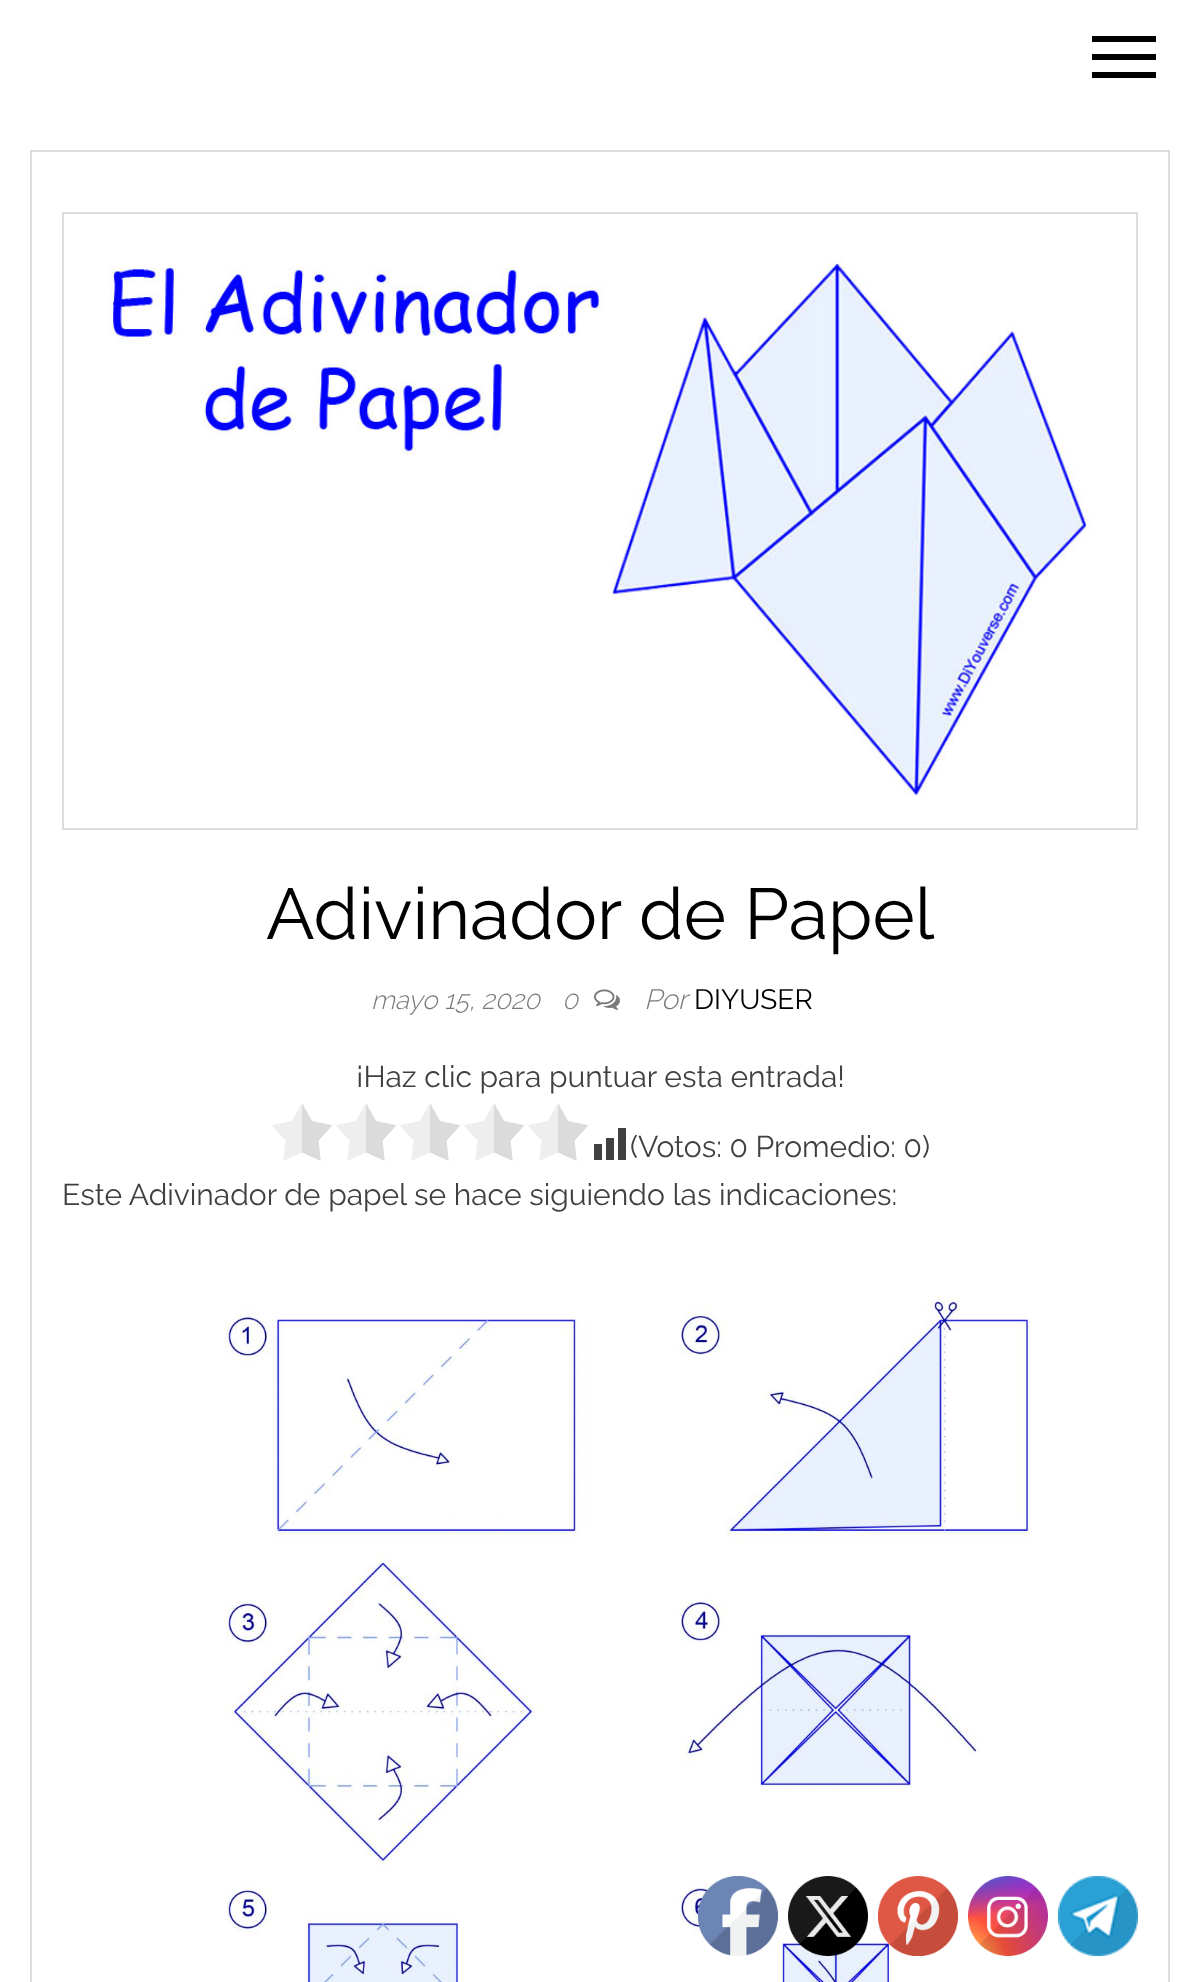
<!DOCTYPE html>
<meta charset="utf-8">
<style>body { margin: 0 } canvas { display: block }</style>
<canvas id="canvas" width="1199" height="1982"></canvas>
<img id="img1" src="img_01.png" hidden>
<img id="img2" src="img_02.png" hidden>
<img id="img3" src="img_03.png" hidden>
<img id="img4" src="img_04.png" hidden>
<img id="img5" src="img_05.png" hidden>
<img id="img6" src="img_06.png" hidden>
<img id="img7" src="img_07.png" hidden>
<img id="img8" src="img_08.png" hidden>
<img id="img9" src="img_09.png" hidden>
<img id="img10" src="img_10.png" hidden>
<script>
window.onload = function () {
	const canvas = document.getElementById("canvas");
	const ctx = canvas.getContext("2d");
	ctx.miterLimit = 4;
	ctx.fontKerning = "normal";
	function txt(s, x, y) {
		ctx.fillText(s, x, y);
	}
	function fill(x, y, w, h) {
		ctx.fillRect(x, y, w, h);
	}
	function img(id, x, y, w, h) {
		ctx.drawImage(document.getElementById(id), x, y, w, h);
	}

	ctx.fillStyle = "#FFFFFF";
	fill(0, 0, 1199, 1982);
	ctx.fillStyle = "#000000";
	fill(1092, 36, 64, 6);
	fill(1092, 54, 64, 6);
	fill(1092, 72, 64, 6);
	ctx.strokeStyle = "#DDDDDD";
	ctx.lineWidth = 2;
	ctx.strokeRect(31, 151, 1138, 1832);
	ctx.strokeRect(63, 213, 1074, 616);
	img("img1", 109, 258, 981, 538);
	img("img2", 594, 989, 26, 21);
	img("img3", 272, 1103, 316, 58);
	img("img4", 594, 1128, 32, 32);
	img("img5", 225, 1296, 805, 686);
	img("img6", 698, 1876, 80, 80);
	img("img7", 788, 1876, 80, 80);
	img("img8", 878, 1876, 80, 80);
	img("img9", 968, 1876, 80, 80);
	img("img10", 1058, 1876, 80, 80);
	ctx.font = "72px Raleway";
	txt("Adivinador de Papel", 266, 939);
	ctx.font = "italic 300 26px Raleway";
	ctx.fillStyle = "#797979";
	txt("mayo 15, 2020", 371, 1009);
	txt("0", 562, 1009);
	ctx.font = "italic 300 28px Raleway";
	txt("Por", 644, 1009);
	ctx.font = "28px Raleway";
	ctx.fillStyle = "#000000";
	txt("DIYUSER", 694, 1009);
	ctx.font = "30px Raleway";
	ctx.fillStyle = "#404040";
	txt("¡Haz clic para puntuar esta entrada!", 356, 1087);
	txt("(Votos: 0 Promedio: 0", 630, 1157);
	txt(")", 922, 1157);
	txt("Este Adivinador de papel se hace siguiendo las indicaciones:", 62, 1205);
};
</script>
